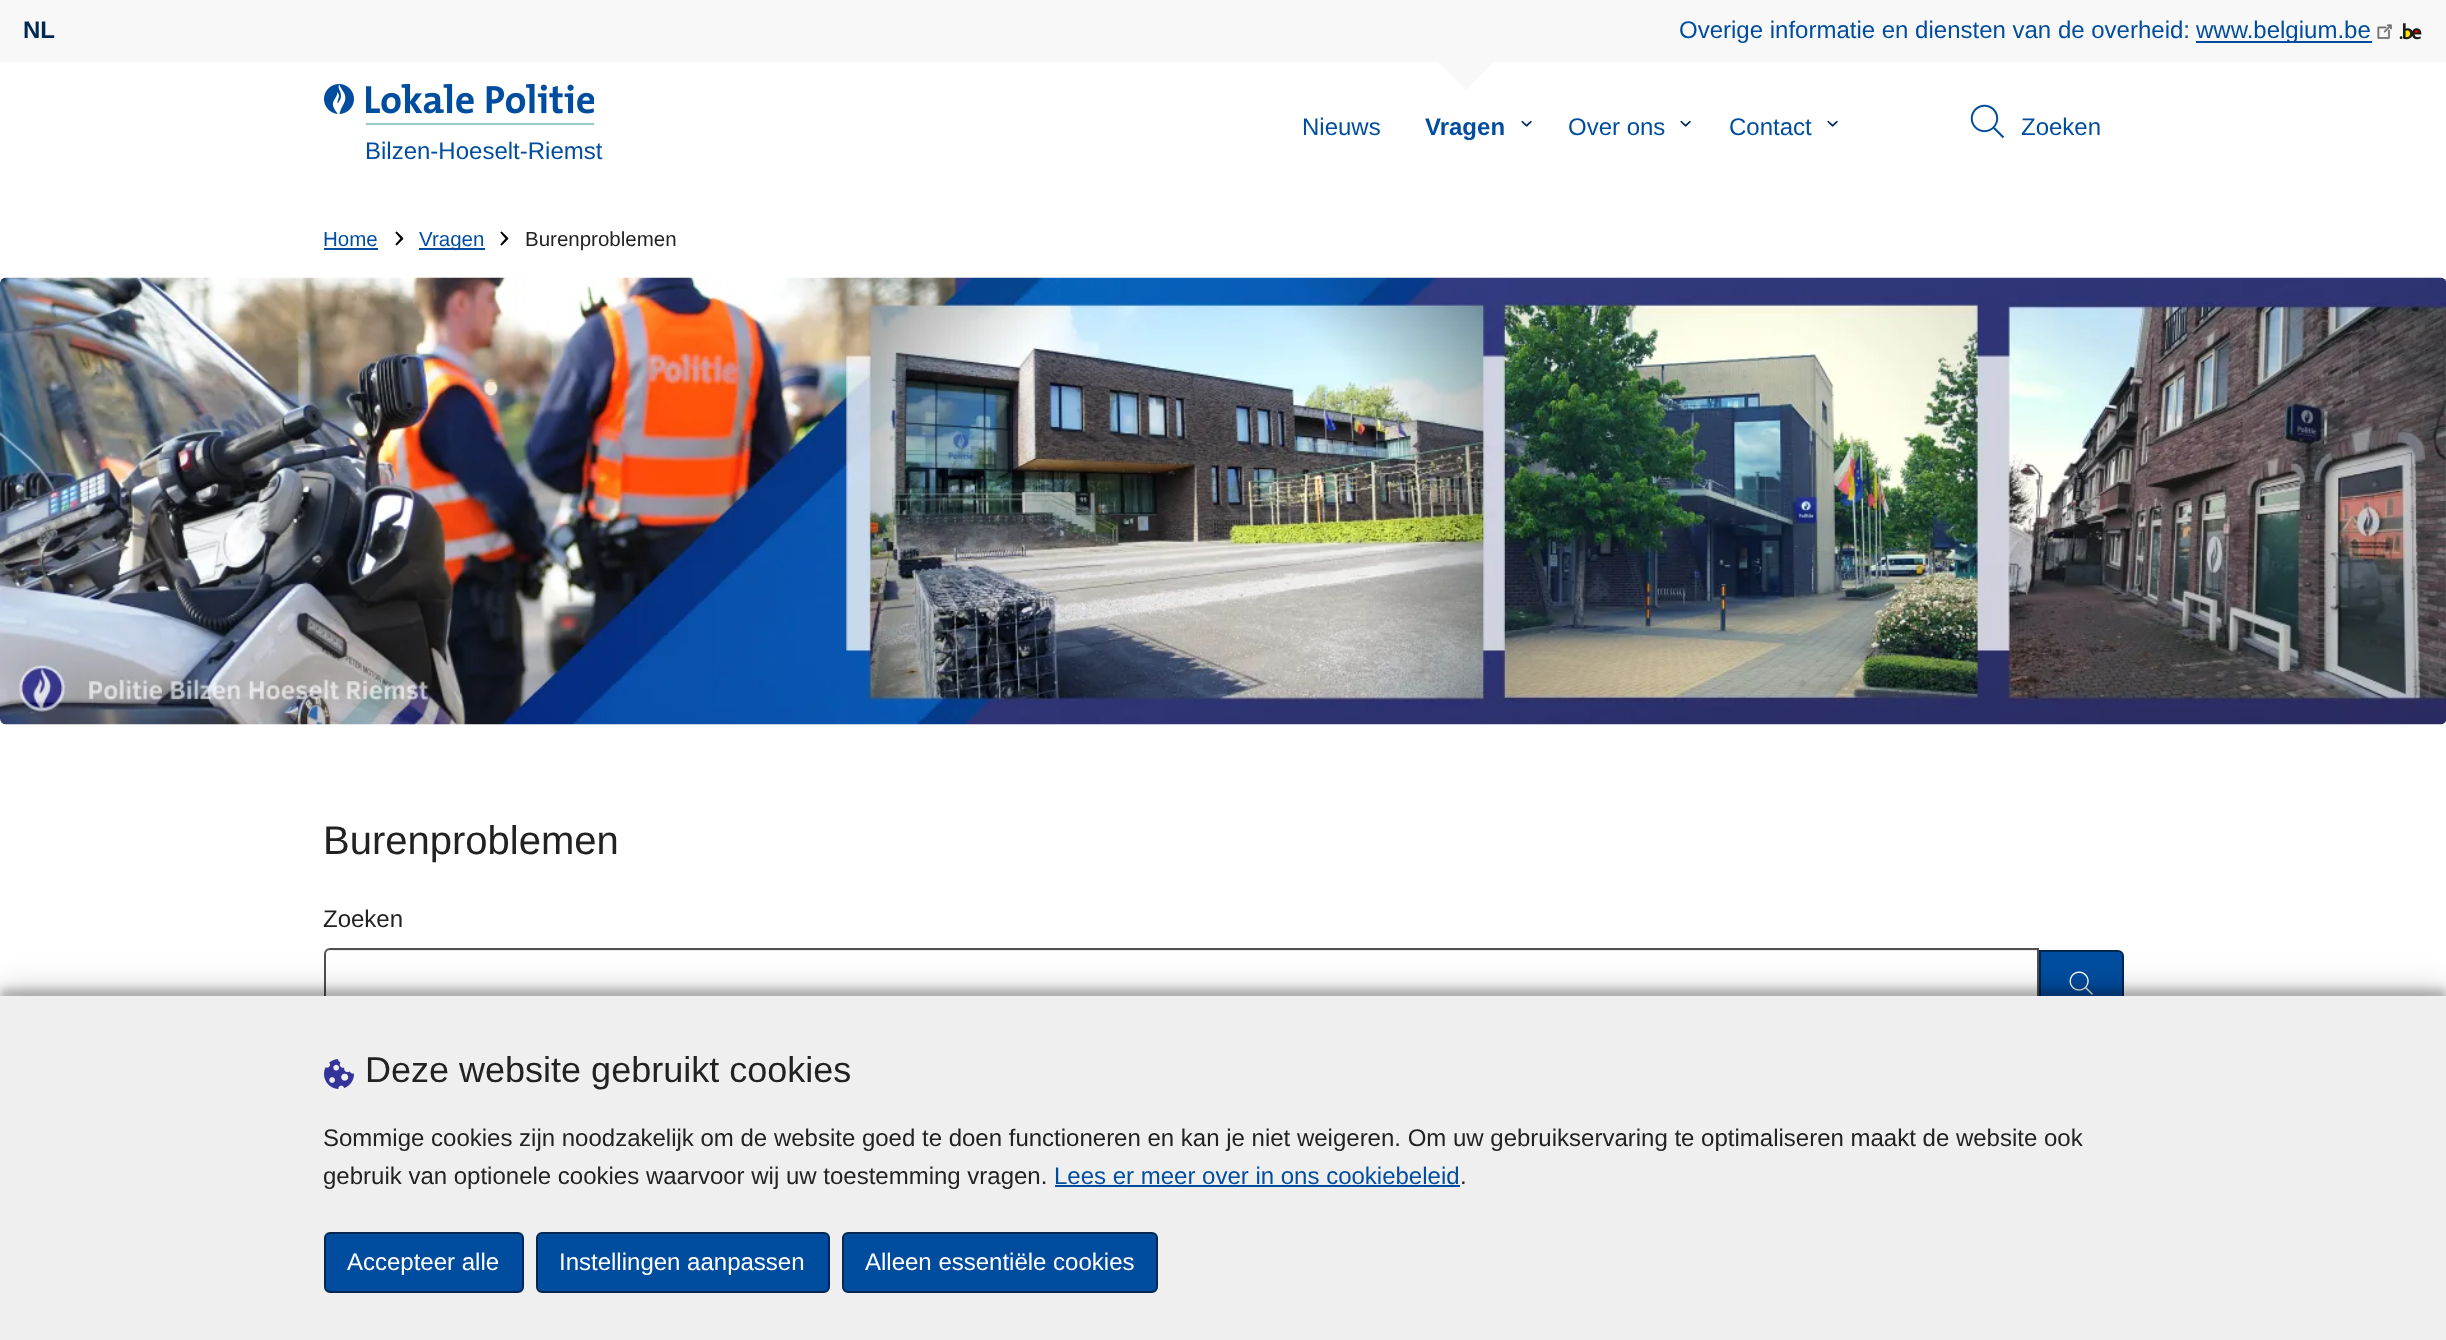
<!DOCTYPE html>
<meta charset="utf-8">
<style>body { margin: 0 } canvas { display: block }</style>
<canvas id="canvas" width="2446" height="1340"></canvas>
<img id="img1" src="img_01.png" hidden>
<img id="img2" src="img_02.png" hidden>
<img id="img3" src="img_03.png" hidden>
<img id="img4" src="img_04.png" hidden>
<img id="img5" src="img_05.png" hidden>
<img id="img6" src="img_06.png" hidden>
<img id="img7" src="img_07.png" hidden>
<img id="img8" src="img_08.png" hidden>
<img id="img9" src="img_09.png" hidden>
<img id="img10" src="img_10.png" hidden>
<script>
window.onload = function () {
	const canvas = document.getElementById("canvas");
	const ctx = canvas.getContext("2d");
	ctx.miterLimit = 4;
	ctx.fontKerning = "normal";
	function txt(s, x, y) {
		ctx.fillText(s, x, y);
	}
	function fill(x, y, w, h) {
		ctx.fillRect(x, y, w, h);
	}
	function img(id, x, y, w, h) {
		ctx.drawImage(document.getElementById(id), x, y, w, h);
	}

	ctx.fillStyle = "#FFFFFF";
	fill(0, 0, 2446, 1340);
	ctx.fillStyle = "#F8F8F8";
	ctx.beginPath();
	ctx.moveTo(1436, 60);
	ctx.lineTo(1496, 60);
	ctx.lineTo(1466, 90);
	ctx.closePath();
	ctx.fill();
	fill(0, 0, 2446, 62);
	ctx.fillStyle = "#004D9F";
	fill(2196, 41, 176, 2);
	img("img1", 2377, 24, 15, 15);
	img("img2", 2399, 23, 23, 17);
	img("img3", 1521, 120, 11, 7);
	img("img3", 1680, 120, 11, 7);
	img("img3", 1827, 120, 11, 7);
	img("img4", 1970, 104, 35, 35);
	img("img5", 324, 84, 30, 30);
	img("img6", 366, 84, 228, 41);
	fill(324, 248, 54, 2);
	img("img7", 395, 231, 9, 15);
	fill(419, 248, 66, 2);
	img("img7", 500, 231, 9, 15);
	img("img8", 0, 277, 2446, 448);
	ctx.fillStyle = "#ECECEC";
	ctx.beginPath();
	ctx.moveTo(330, 951);
	ctx.lineTo(2037, 951);
	ctx.lineTo(2037, 950);
	ctx.lineTo(331, 950);
	ctx.bezierCurveTo(328, 950, 326, 953, 326, 956);
	ctx.bezierCurveTo(326, 953, 328, 951, 330, 951);
	ctx.closePath();
	ctx.fill();
	ctx.beginPath();
	ctx.roundRect(325, 949, 1713, 60, [5, 0, 0, 5]);
	ctx.strokeStyle = "#505050";
	ctx.lineWidth = 2;
	ctx.stroke();
	ctx.fillStyle = "#004D9F";
	ctx.beginPath();
	ctx.roundRect(2040, 951, 83, 58, [0, 5, 5, 0]);
	ctx.fill();
	ctx.strokeStyle = "#002853";
	ctx.stroke();
	img("img9", 2069, 971, 24, 24);
	ctx.fillStyle = "rgba(0, 0, 0, 0.23)";
	ctx.filter = "blur(4.5px)";
	ctx.beginPath();
	ctx.rect(0, 989, 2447, 345);
	ctx.fill();
	ctx.filter = "none";
	ctx.fillStyle = "rgba(0, 0, 0, 0.19)";
	ctx.filter = "blur(15px)";
	ctx.beginPath();
	ctx.rect(0, 989, 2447, 345);
	ctx.fill();
	ctx.filter = "none";
	ctx.fillStyle = "#EFEFEF";
	fill(0, 996, 2446, 344);
	img("img10", 324, 1059, 30, 30);
	ctx.fillStyle = "#004D9F";
	fill(1055, 1185, 405, 2);
	ctx.beginPath();
	ctx.roundRect(325, 1233, 198, 59, 5);
	ctx.fill();
	ctx.stroke();
	ctx.beginPath();
	ctx.roundRect(537, 1233, 292, 59, 5);
	ctx.fill();
	ctx.stroke();
	ctx.beginPath();
	ctx.roundRect(843, 1233, 314, 59, 5);
	ctx.fill();
	ctx.stroke();
	ctx.font = "bold 24px Liberation Sans";
	ctx.fillStyle = "#002853";
	txt("NL", 23, 38);
	ctx.font = "24px Liberation Sans";
	ctx.fillStyle = "#004D9F";
	txt("Overige informatie en diensten van de overheid:", 1679, 38);
	txt("www.belgium.be", 2196, 38);
	txt("Nieuws", 1302, 135);
	ctx.font = "bold 24px Liberation Sans";
	txt("Vragen", 1425, 135);
	ctx.font = "24px Liberation Sans";
	txt("Over ons", 1568, 135);
	txt("Contact", 1729, 135);
	txt("Zoeken", 2021, 135);
	txt("Bilzen-Hoeselt-Riemst", 365, 159);
	ctx.font = "20.5px Liberation Sans";
	txt("Home", 323, 246);
	txt("Vragen", 419, 246);
	ctx.fillStyle = "#222222";
	txt("Burenproblemen", 525, 246);
	ctx.font = "40px Liberation Sans";
	txt("Burenproblemen", 323, 854);
	ctx.font = "24px Liberation Sans";
	txt("Zoeken", 323, 927);
	ctx.font = "36px Liberation Sans";
	txt("Deze website gebruikt cookies", 365, 1082);
	ctx.font = "24px Liberation Sans";
	txt("Sommige cookies zijn noodzakelijk om de website goed te doen functioneren en kan je niet weigeren. Om uw gebruikservaring te optimaliseren maakt de website ook", 323, 1146);
	txt("gebruik van optionele cookies waarvoor wij uw toestemming vragen.", 323, 1184);
	ctx.fillStyle = "#004D9F";
	txt("Lees er meer over in ons cookiebeleid", 1054, 1184);
	ctx.fillStyle = "#222222";
	txt(".", 1460, 1184);
	ctx.fillStyle = "#FFFFFF";
	txt("Accepteer alle", 347, 1270);
	txt("Instellingen aanpassen", 559, 1270);
	txt("Alleen essentiële cookies", 865, 1270);
};
</script>
